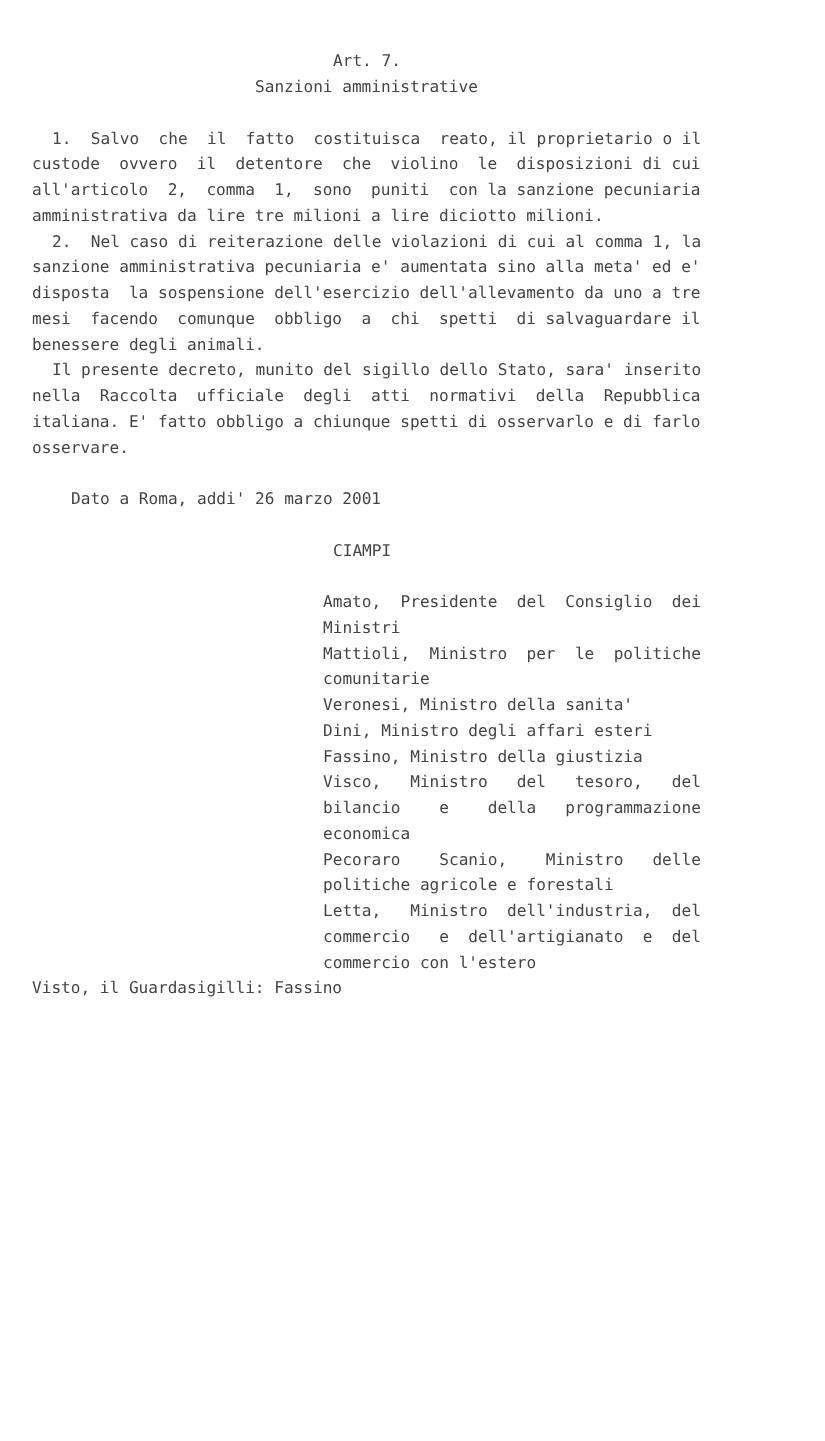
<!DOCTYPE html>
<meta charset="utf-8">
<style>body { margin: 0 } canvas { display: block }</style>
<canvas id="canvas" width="825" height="1441"></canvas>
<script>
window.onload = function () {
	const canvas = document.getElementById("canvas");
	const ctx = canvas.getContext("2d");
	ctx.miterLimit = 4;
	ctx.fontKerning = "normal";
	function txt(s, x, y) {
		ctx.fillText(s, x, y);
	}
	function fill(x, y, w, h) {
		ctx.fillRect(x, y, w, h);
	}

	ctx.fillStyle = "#FFFFFF";
	fill(0, 0, 825, 1441);
	ctx.font = "16.1px DejaVu Sans Mono";
	ctx.fillStyle = "#444444";
	txt("Art. 7.", 333, 66);
	txt("Sanzioni amministrative", 255, 92);
	txt("1.  Salvo  che  il  fatto  costituisca  reato, il proprietario o il", 52, 144);
	txt("custode  ovvero  il  detentore  che  violino  le  disposizioni di cui", 32, 169);
	txt("all'articolo  2,  comma  1,  sono  puniti  con la sanzione pecuniaria", 32, 195);
	txt("amministrativa da lire tre milioni a lire diciotto milioni.", 32, 221);
	txt("2.  Nel caso di reiterazione delle violazioni di cui al comma 1, la", 52, 247);
	txt("sanzione amministrativa pecuniaria e' aumentata sino alla meta' ed e'", 32, 272);
	txt("disposta  la sospensione dell'esercizio dell'allevamento da uno a tre", 32, 298);
	txt("mesi  facendo  comunque  obbligo  a  chi  spetti  di salvaguardare il", 32, 324);
	txt("benessere degli animali.", 32, 350);
	txt("Il presente decreto, munito del sigillo dello Stato, sara' inserito", 52, 375);
	txt("nella  Raccolta  ufficiale  degli  atti  normativi  della  Repubblica", 32, 401);
	txt("italiana. E' fatto obbligo a chiunque spetti di osservarlo e di farlo", 32, 427);
	txt("osservare.", 32, 453);
	txt("Dato a Roma, addi' 26 marzo 2001", 71, 504);
	txt("CIAMPI", 333, 556);
	txt("Amato,  Presidente  del  Consiglio  dei", 323, 607);
	txt("Ministri", 323, 633);
	txt("Mattioli,  Ministro  per  le  politiche", 323, 659);
	txt("comunitarie", 323, 684);
	txt("Veronesi, Ministro della sanita'", 323, 710);
	txt("Dini, Ministro degli affari esteri", 323, 736);
	txt("Fassino, Ministro della giustizia", 323, 762);
	txt("Visco,   Ministro   del   tesoro,   del", 323, 787);
	txt("bilancio    e    della   programmazione", 323, 813);
	txt("economica", 323, 839);
	txt("Pecoraro    Scanio,    Ministro   delle", 323, 865);
	txt("politiche agricole e forestali", 323, 890);
	txt("Letta,   Ministro  dell'industria,  del", 323, 916);
	txt("commercio   e  dell'artigianato  e  del", 323, 942);
	txt("commercio con l'estero", 323, 968);
	txt("Visto, il Guardasigilli: Fassino", 32, 993);
};
</script>
